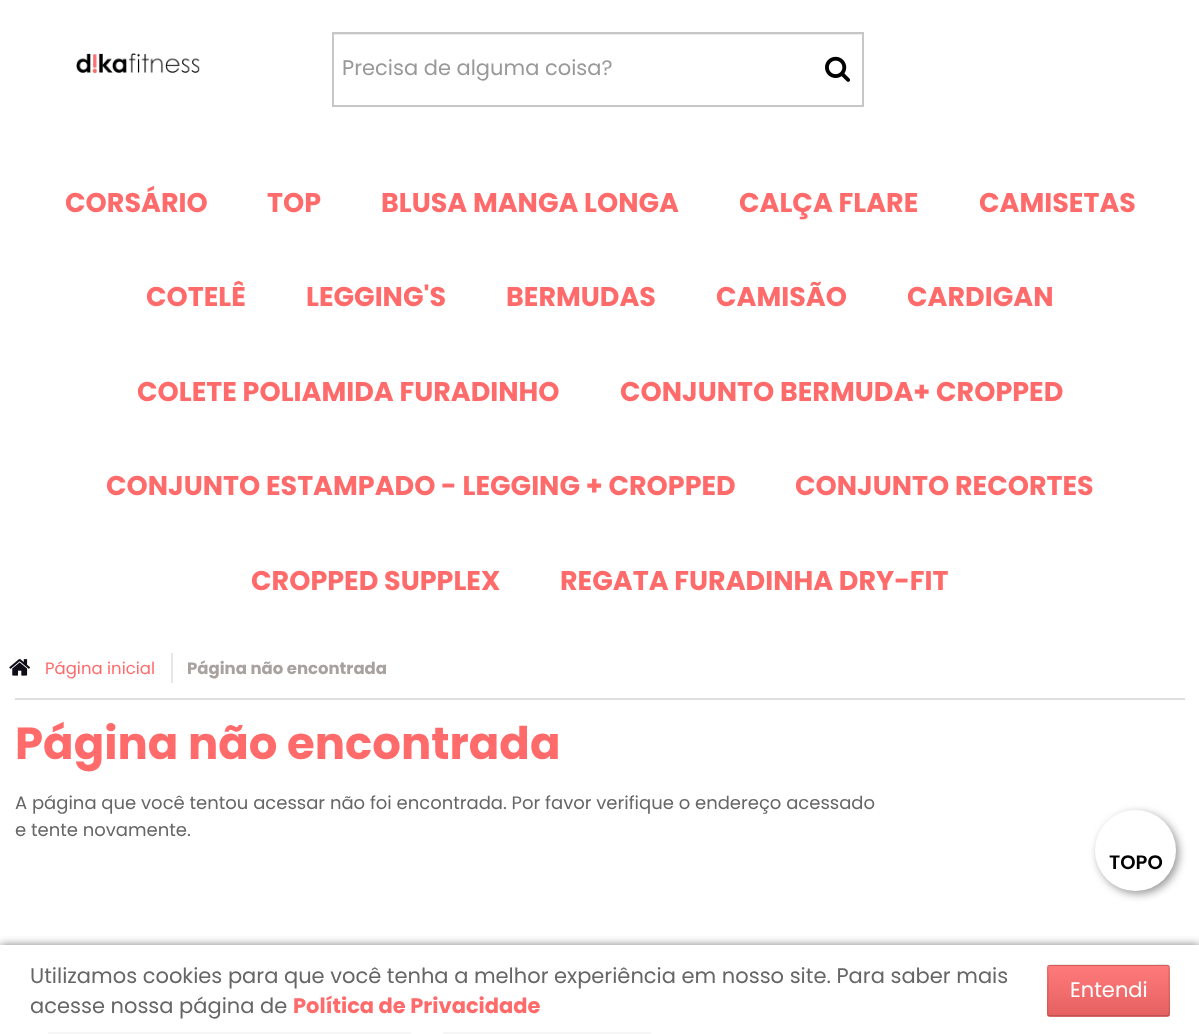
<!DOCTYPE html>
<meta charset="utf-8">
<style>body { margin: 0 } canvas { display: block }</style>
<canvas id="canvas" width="1199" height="1034"></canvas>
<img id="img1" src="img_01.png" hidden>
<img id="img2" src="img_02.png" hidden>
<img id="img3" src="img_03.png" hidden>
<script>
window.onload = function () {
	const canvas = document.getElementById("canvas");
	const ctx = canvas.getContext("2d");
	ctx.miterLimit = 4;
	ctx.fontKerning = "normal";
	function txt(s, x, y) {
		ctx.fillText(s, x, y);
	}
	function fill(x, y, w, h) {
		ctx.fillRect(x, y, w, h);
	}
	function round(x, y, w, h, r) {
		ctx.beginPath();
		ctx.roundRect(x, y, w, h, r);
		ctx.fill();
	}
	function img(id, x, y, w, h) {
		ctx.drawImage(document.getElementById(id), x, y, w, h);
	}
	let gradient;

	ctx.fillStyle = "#FFFFFF";
	fill(0, 0, 1199, 1034);
	img("img1", 76, 53, 124, 21);
	ctx.fillStyle = "#ECECEC";
	fill(333, 34, 530, 1);
	ctx.strokeStyle = "#C7C7C7";
	ctx.lineWidth = 2;
	ctx.strokeRect(333, 33, 530, 73);
	img("img2", 825, 56, 25, 26);
	ctx.fillStyle = "#DEDEDE";
	fill(15, 698, 1170, 2);
	img("img3", 9, 659, 21, 17);
	ctx.fillStyle = "#E6E6E6";
	fill(171, 653, 2, 30);
	ctx.fillStyle = "#F6F6F6";
	fill(48, 1032, 363, 2);
	fill(443, 1032, 208, 2);
	ctx.fillStyle = "rgba(0, 0, 0, 0.4)";
	ctx.filter = "blur(4.5px)";
	ctx.beginPath();
	ctx.roundRect(1098, 813, 81, 81, 40.5);
	ctx.fill();
	ctx.filter = "none";
	ctx.fillStyle = "#FFFFFF";
	ctx.beginPath();
	ctx.arc(1135.5, 850.5, 40.5, 0, Math.PI * 2);
	ctx.fill();
	ctx.save();
	ctx.beginPath();
	ctx.rect(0, 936, 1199, 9);
	ctx.clip();
	ctx.fillStyle = "rgba(0, 0, 0, 0.5)";
	ctx.filter = "blur(5px)";
	ctx.beginPath();
	ctx.rect(0, 945, 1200, 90);
	ctx.fill();
	ctx.filter = "none";
	ctx.restore();
	ctx.fillStyle = "#FF6B6B";
	round(1047, 965, 123, 52, 3);
	gradient = ctx.createLinearGradient(1109, 917, 1109, 966);
	gradient.addColorStop(0, "rgba(255, 255, 255, 0.1)");
	gradient.addColorStop(1, "rgba(0, 0, 0, 0.1)");
	ctx.fillStyle = gradient;
	fill(1047, 965, 123, 1);
	gradient = ctx.createLinearGradient(1109, 966, 1109, 1016);
	gradient.addColorStop(0, "rgba(255, 255, 255, 0.1)");
	gradient.addColorStop(1, "rgba(0, 0, 0, 0.1)");
	ctx.fillStyle = gradient;
	fill(1047, 966, 123, 50);
	gradient = ctx.createLinearGradient(1109, 1016, 1109, 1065);
	gradient.addColorStop(0, "rgba(255, 255, 255, 0.1)");
	gradient.addColorStop(1, "rgba(0, 0, 0, 0.1)");
	ctx.fillStyle = gradient;
	fill(1047, 1016, 123, 1);
	ctx.beginPath();
	ctx.moveTo(1168.5, 1015.5);
	ctx.lineTo(1167, 1016);
	ctx.lineTo(1050, 1016);
	ctx.lineTo(1048.5, 1015.5);
	ctx.strokeStyle = "rgba(0, 0, 0, 0.2)";
	ctx.lineWidth = 1.5;
	ctx.stroke();
	ctx.beginPath();
	ctx.moveTo(1048.5, 1015.5);
	ctx.bezierCurveTo(1046.5, 1014, 1048, 994, 1048, 991);
	ctx.lineTo(1048, 975);
	ctx.bezierCurveTo(1048, 975, 1046, 965.5, 1050, 965);
	ctx.lineTo(1147.5, 965);
	ctx.bezierCurveTo(1173, 965, 1169, 960, 1169, 983);
	ctx.bezierCurveTo(1169, 987, 1170.5, 1014, 1168.5, 1015.5);
	ctx.strokeStyle = "rgba(0, 0, 0, 0.1)";
	ctx.stroke();
	ctx.font = "21px Poppins";
	ctx.fillStyle = "#999999";
	txt("Precisa de alguma coisa?", 342, 75);
	ctx.font = "bold 27px Poppins";
	ctx.fillStyle = "#FF6B6B";
	txt("CORSÁRIO", 65, 212);
	txt("TOP", 267, 212);
	txt("BLUSA MANGA LONGA", 381, 212);
	txt("CALÇA FLARE", 739, 212);
	txt("CAMISETAS", 979, 212);
	txt("COTELÊ", 146, 306);
	txt("LEGGING'S", 306, 306);
	txt("BERMUDAS", 506, 306);
	txt("CAMISÃO", 716, 306);
	txt("CARDIGAN", 907, 306);
	txt("COLETE POLIAMIDA FURADINHO", 137, 401);
	txt("CONJUNTO BERMUDA+ CROPPED", 620, 401);
	txt("CONJUNTO ESTAMPADO - LEGGING + CROPPED", 106, 495);
	txt("CONJUNTO RECORTES", 795, 495);
	txt("CROPPED SUPPLEX", 251, 590);
	txt("REGATA FURADINHA DRY-FIT", 560, 590);
	ctx.font = "16.5px Poppins";
	txt("Página inicial", 45, 674);
	ctx.font = "bold 16.5px Poppins";
	ctx.fillStyle = "#A8A29E";
	txt("Página não encontrada", 187, 674);
	ctx.font = "bold 45px Poppins";
	ctx.fillStyle = "#FF6B6B";
	txt("Página não encontrada", 15, 759);
	ctx.font = "18px Poppins";
	ctx.fillStyle = "#666666";
	txt("A página que você tentou acessar não foi encontrada. Por favor verifique o endereço acessado", 15, 809);
	txt("e tente novamente.", 15, 836);
	ctx.font = "600 19.5px Poppins";
	ctx.fillStyle = "#000000";
	txt("TOPO", 1109, 869);
	ctx.font = "21px Poppins";
	ctx.fillStyle = "#666666";
	txt("Utilizamos cookies para que você tenha a melhor experiência em nosso site. Para saber mais", 30, 983);
	txt("acesse nossa página de", 30, 1013);
	ctx.font = "bold 21px Poppins";
	ctx.fillStyle = "#FF6B6B";
	txt("Política de Privacidade", 293, 1013);
	ctx.font = "21px Poppins";
	ctx.fillStyle = "#FFFFFF";
	txt("Entendi", 1070, 997);
};
</script>
